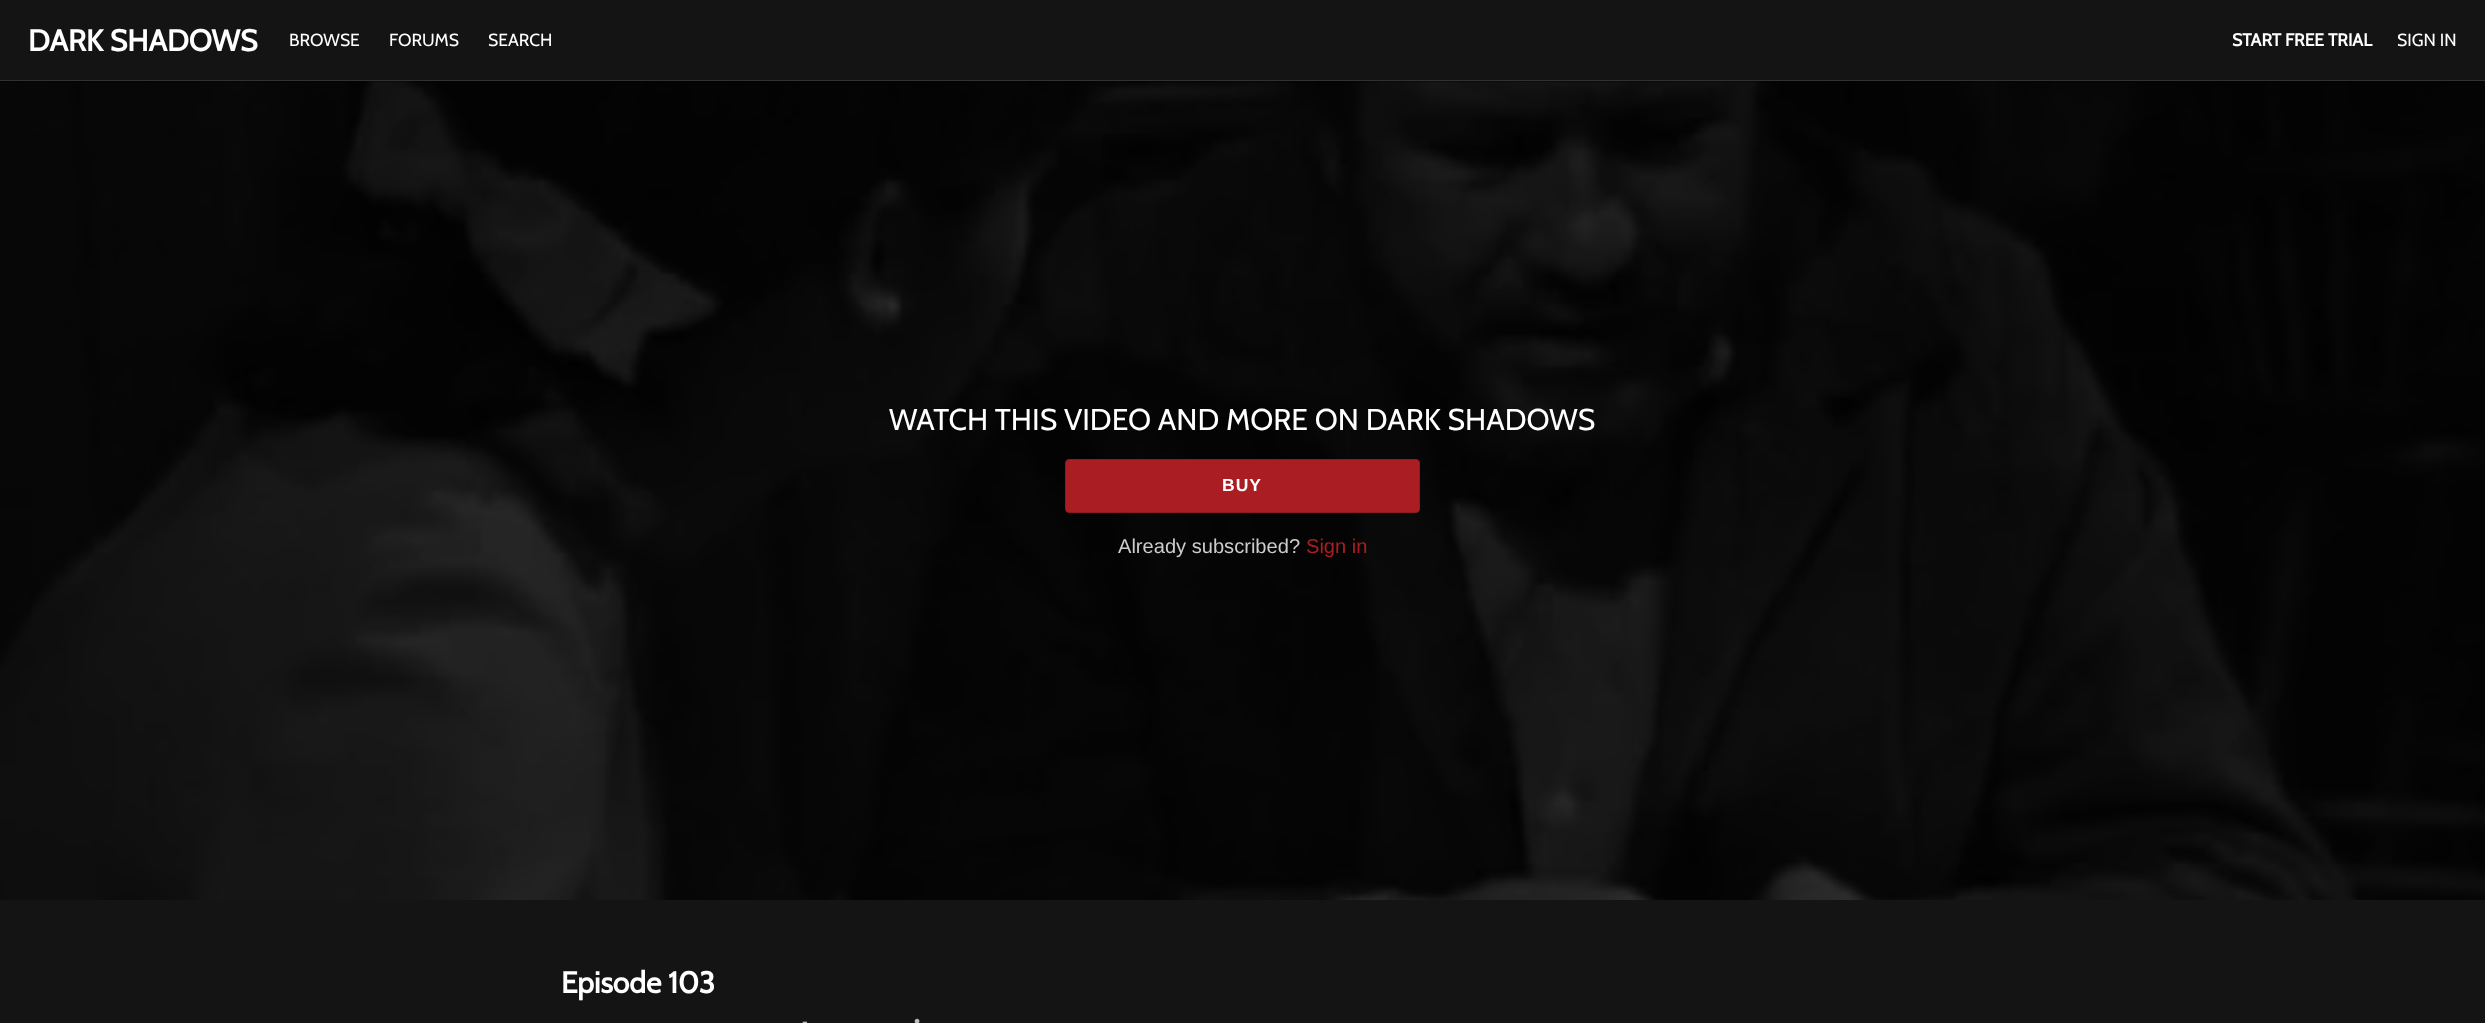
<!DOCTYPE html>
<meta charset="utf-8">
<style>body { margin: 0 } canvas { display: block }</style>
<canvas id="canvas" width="2485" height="1023"></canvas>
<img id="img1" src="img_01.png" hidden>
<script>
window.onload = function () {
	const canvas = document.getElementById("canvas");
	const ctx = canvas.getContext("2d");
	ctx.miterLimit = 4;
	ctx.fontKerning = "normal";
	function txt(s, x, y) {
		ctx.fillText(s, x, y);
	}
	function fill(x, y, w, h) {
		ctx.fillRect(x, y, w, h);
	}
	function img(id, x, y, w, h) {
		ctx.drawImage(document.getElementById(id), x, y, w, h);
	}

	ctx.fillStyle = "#141414";
	fill(0, 0, 2485, 1023);
	ctx.fillStyle = "#323232";
	fill(0, 80, 2485, 1);
	ctx.fillStyle = "#000000";
	fill(0, 81, 2485, 1);
	img("img1", 0, 81, 2485, 819);
	ctx.fillStyle = "#AA1E23";
	ctx.beginPath();
	ctx.roundRect(1065.5, 459.5, 354, 53, 3.5);
	ctx.fill();
	ctx.strokeStyle = "#911A1E";
	ctx.stroke();
	ctx.font = "bold 30px Cabin";
	ctx.fillStyle = "#FFFFFF";
	txt("DARK SHADOWS", 28, 51);
	ctx.font = "17.5px Cabin";
	txt("BROWSE", 289, 46);
	txt("FORUMS", 389, 46);
	txt("SEARCH", 488, 46);
	ctx.font = "bold 17.5px Cabin";
	txt("START FREE TRIAL", 2232, 46);
	ctx.font = "17.5px Cabin";
	txt("SIGN IN", 2397, 46);
	ctx.font = "30px Cabin";
	txt("WATCH THIS VIDEO AND MORE ON DARK SHADOWS", 889, 430);
	ctx.letterSpacing = "1px";
	ctx.font = "bold 17.5px Liberation Sans";
	txt("BUY", 1222, 491);
	ctx.letterSpacing = "0px";
	ctx.font = "20.1px Liberation Sans";
	ctx.fillStyle = "#CDCDCD";
	txt("Already subscribed?", 1118, 553);
	ctx.fillStyle = "#AA1E23";
	txt("Sign in", 1306, 553);
	ctx.font = "bold 30px Cabin";
	ctx.fillStyle = "#FFFFFF";
	txt("Episode 103", 561, 993);
	ctx.font = "17.5px Liberation Sans";
	ctx.fillStyle = "#BEBEBB";
	txt("-", 802, 1027);
	txt("•", 914, 1027);
};
</script>
